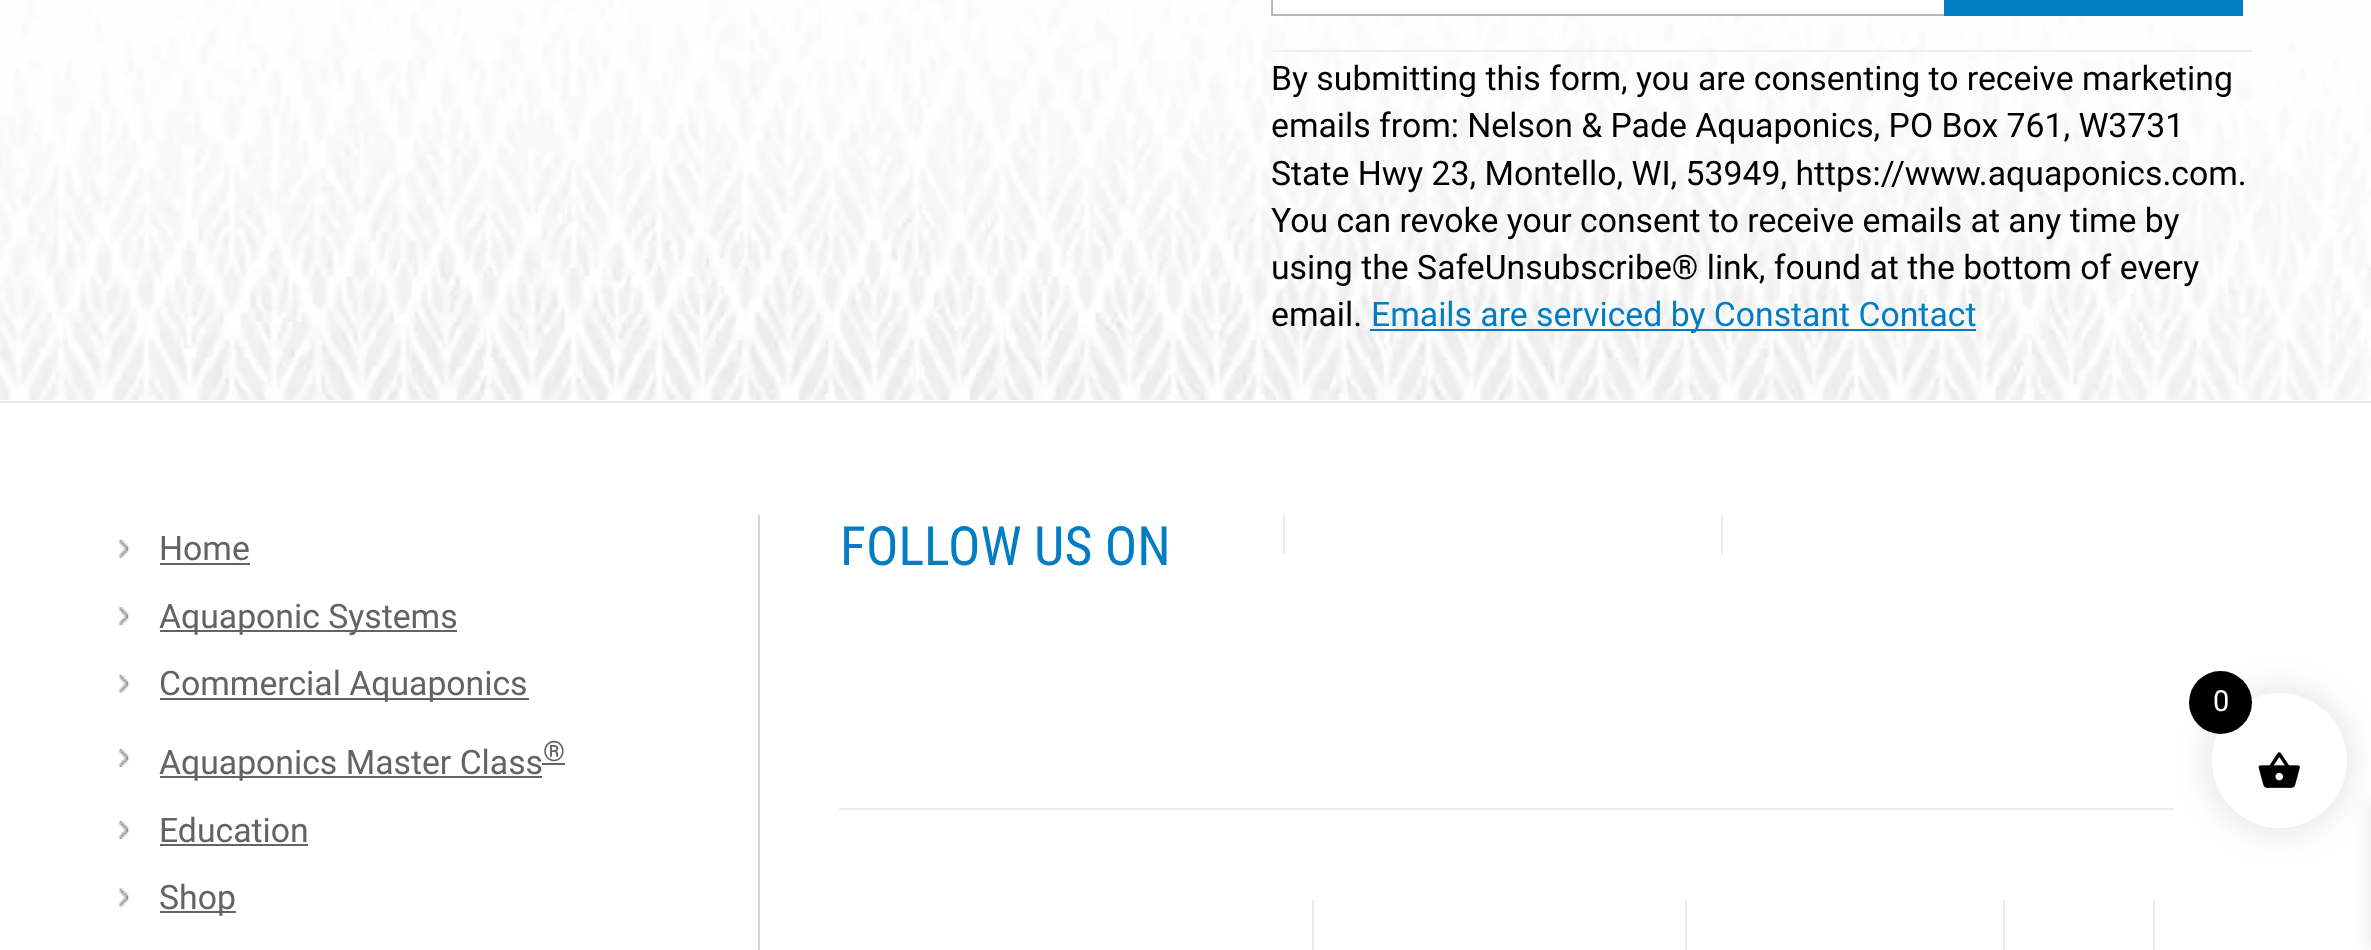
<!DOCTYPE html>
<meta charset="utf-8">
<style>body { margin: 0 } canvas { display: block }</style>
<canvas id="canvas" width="2371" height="950"></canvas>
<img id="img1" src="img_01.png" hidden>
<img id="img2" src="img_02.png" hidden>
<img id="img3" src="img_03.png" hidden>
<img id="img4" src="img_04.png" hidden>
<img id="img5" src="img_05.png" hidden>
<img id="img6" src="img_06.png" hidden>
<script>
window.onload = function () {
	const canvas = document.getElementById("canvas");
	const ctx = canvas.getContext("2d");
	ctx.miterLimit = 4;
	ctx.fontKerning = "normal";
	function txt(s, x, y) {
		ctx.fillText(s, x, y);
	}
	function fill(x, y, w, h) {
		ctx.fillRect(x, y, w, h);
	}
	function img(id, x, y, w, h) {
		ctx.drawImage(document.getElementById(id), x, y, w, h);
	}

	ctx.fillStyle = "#FFFFFF";
	fill(0, 0, 2371, 950);
	img("img1", 0, 0, 2371, 401);
	ctx.fillStyle = "#E9E9E9";
	fill(0, 401, 2371, 2);
	ctx.fillStyle = "#FFFFFF";
	fill(1275, 0, 669, 14);
	ctx.fillStyle = "#B7B7B7";
	fill(1271, 14, 673, 2);
	fill(1271, 0, 2, 16);
	ctx.fillStyle = "#027EC0";
	fill(1944, 0, 299, 16);
	ctx.fillStyle = "#EEEEEE";
	fill(1271, 50, 981, 2);
	ctx.fillStyle = "#027DC3";
	fill(1370, 329, 606, 2);
	img("img2", 119, 539, 10, 19);
	ctx.fillStyle = "#636363";
	fill(160, 563, 90, 2);
	img("img3", 119, 607, 10, 19);
	fill(160, 630, 297, 2);
	img("img2", 119, 674, 10, 19);
	fill(160, 698, 369, 2);
	img("img4", 119, 749, 10, 18);
	fill(160, 776, 382, 2);
	fill(542, 763, 23, 2);
	img("img4", 119, 821, 10, 18);
	fill(160, 844, 148, 2);
	img("img5", 119, 888, 10, 19);
	fill(160, 911, 76, 2);
	ctx.fillStyle = "#D3D3D3";
	fill(758, 515, 2, 435);
	ctx.fillStyle = "#EBEBEB";
	fill(1283, 515, 2, 39);
	fill(1721, 515, 2, 39);
	fill(839, 808, 1335, 2);
	fill(1312, 900, 2, 50);
	fill(1685, 900, 2, 50);
	fill(2003, 900, 2, 50);
	fill(2153, 900, 2, 50);
	ctx.fillStyle = "rgba(0, 0, 0, 0.1)";
	ctx.filter = "blur(17px)";
	ctx.beginPath();
	ctx.roundRect(2207, 689, 144, 144, 72);
	ctx.fill();
	ctx.filter = "none";
	ctx.filter = "blur(11px)";
	ctx.beginPath();
	ctx.rect(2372, 803, 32, 147);
	ctx.fill();
	ctx.filter = "none";
	ctx.fillStyle = "#FFFFFF";
	ctx.beginPath();
	ctx.arc(2279.5, 760.5, 67.5, 0, Math.PI * 2);
	ctx.fill();
	ctx.fillStyle = "#000000";
	ctx.beginPath();
	ctx.arc(2220.5, 702.5, 31.5, 0, Math.PI * 2);
	ctx.fill();
	img("img6", 2258, 752, 42, 36);
	ctx.font = "33.75px Roboto";
	txt("By submitting this form, you are consenting to receive marketing", 1271, 90);
	txt("emails from: Nelson & Pade Aquaponics, PO Box 761, W3731", 1271, 137);
	txt("State Hwy 23, Montello, WI, 53949, https://www.aquaponics.com.", 1271, 185);
	txt("You can revoke your consent to receive emails at any time by", 1271, 232);
	txt("using the SafeUnsubscribe® link, found at the bottom of every", 1271, 279);
	txt("email.", 1271, 326);
	ctx.fillStyle = "#027DC3";
	txt("Emails are serviced by Constant Contact", 1371, 326);
	ctx.fillStyle = "#636363";
	txt("Home", 159, 560);
	txt("Aquaponic Systems", 159, 628);
	txt("Commercial Aquaponics", 159, 695);
	txt("Aquaponics Master Class", 159, 774);
	ctx.font = "28px Roboto";
	txt("®", 543, 761);
	ctx.font = "33.75px Roboto";
	txt("Education", 159, 842);
	txt("Shop", 159, 909);
	ctx.font = "54px Roboto Condensed";
	ctx.fillStyle = "#027DC3";
	txt("FOLLOW US ON", 840, 565);
	ctx.font = "29px Roboto";
	ctx.fillStyle = "#FFFFFF";
	txt("0", 2213, 711);
};
</script>
